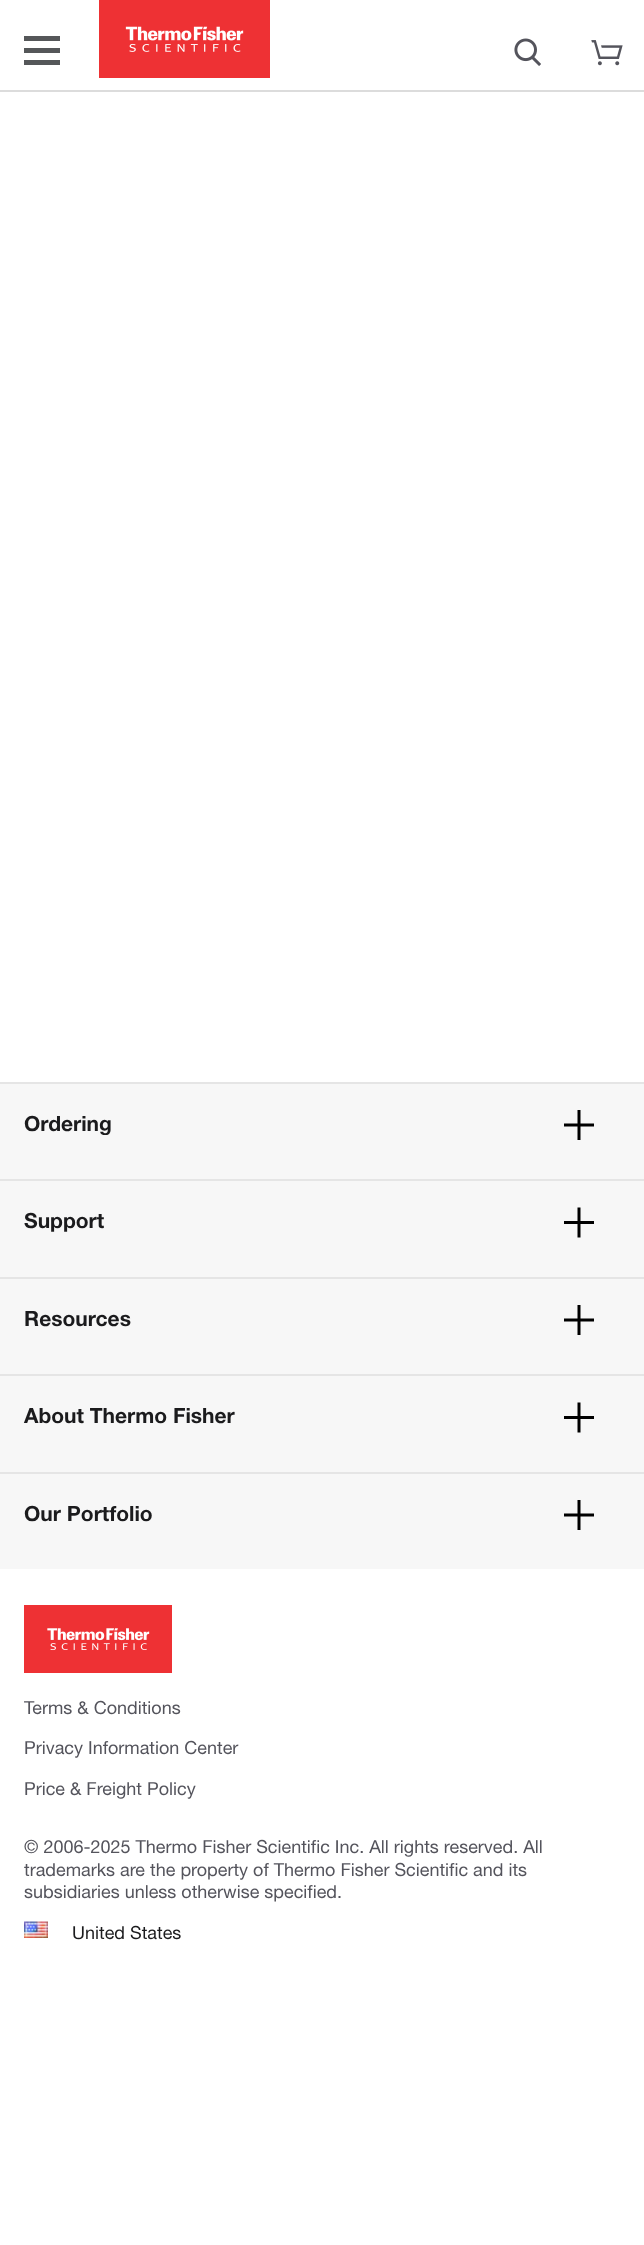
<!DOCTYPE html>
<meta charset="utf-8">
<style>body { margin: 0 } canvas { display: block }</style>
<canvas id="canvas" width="644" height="2245"></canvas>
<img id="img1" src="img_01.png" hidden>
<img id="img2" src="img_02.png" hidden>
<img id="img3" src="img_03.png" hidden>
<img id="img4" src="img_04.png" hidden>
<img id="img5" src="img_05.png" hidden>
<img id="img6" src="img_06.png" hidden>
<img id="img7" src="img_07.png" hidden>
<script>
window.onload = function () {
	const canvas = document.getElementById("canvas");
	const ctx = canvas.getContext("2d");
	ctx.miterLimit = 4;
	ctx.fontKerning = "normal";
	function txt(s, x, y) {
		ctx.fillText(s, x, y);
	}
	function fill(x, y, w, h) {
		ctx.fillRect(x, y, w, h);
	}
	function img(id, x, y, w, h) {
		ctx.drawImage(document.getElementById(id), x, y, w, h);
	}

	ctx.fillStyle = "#FFFFFF";
	fill(0, 0, 644, 2245);
	ctx.fillStyle = "#DCDCDC";
	fill(0, 90, 644, 2);
	ctx.fillStyle = "#555759";
	fill(24, 48, 36, 5);
	fill(24, 36, 36, 5);
	fill(24, 60, 36, 5);
	img("img1", 99, 0, 171, 78);
	img("img2", 514, 38, 27, 28);
	img("img3", 591, 40, 32, 26);
	ctx.fillStyle = "#F7F7F7";
	fill(0, 1084, 644, 485);
	ctx.fillStyle = "#E5E5E5";
	fill(0, 1082, 644, 2);
	img("img4", 564, 1110, 30, 30);
	fill(0, 1179, 644, 2);
	img("img5", 564, 1207, 30, 31);
	fill(0, 1277, 644, 2);
	img("img4", 564, 1305, 30, 30);
	fill(0, 1374, 644, 2);
	img("img5", 564, 1402, 30, 31);
	fill(0, 1472, 644, 2);
	img("img4", 564, 1500, 30, 30);
	img("img6", 24, 1605, 148, 68);
	img("img7", 24, 1921, 24, 17);
	ctx.font = "bold 21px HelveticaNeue";
	ctx.fillStyle = "#1B1B1D";
	txt("Ordering", 24, 1131);
	txt("Support", 24, 1228);
	txt("Resources", 24, 1326);
	txt("About Thermo Fisher", 24, 1423);
	txt("Our Portfolio", 24, 1521);
	ctx.font = "18px HelveticaNeue";
	ctx.fillStyle = "#54545C";
	txt("Terms & Conditions", 24, 1714);
	txt("Privacy Information Center", 24, 1754);
	txt("Price & Freight Policy", 24, 1795);
	txt("© 2006-2025 Thermo Fisher Scientific Inc. All rights reserved. All", 24, 1853);
	txt("trademarks are the property of Thermo Fisher Scientific and its", 24, 1876);
	txt("subsidiaries unless otherwise specified.", 24, 1898);
	ctx.fillStyle = "#1B1B1D";
	txt("United States", 72, 1939);
};
</script>
